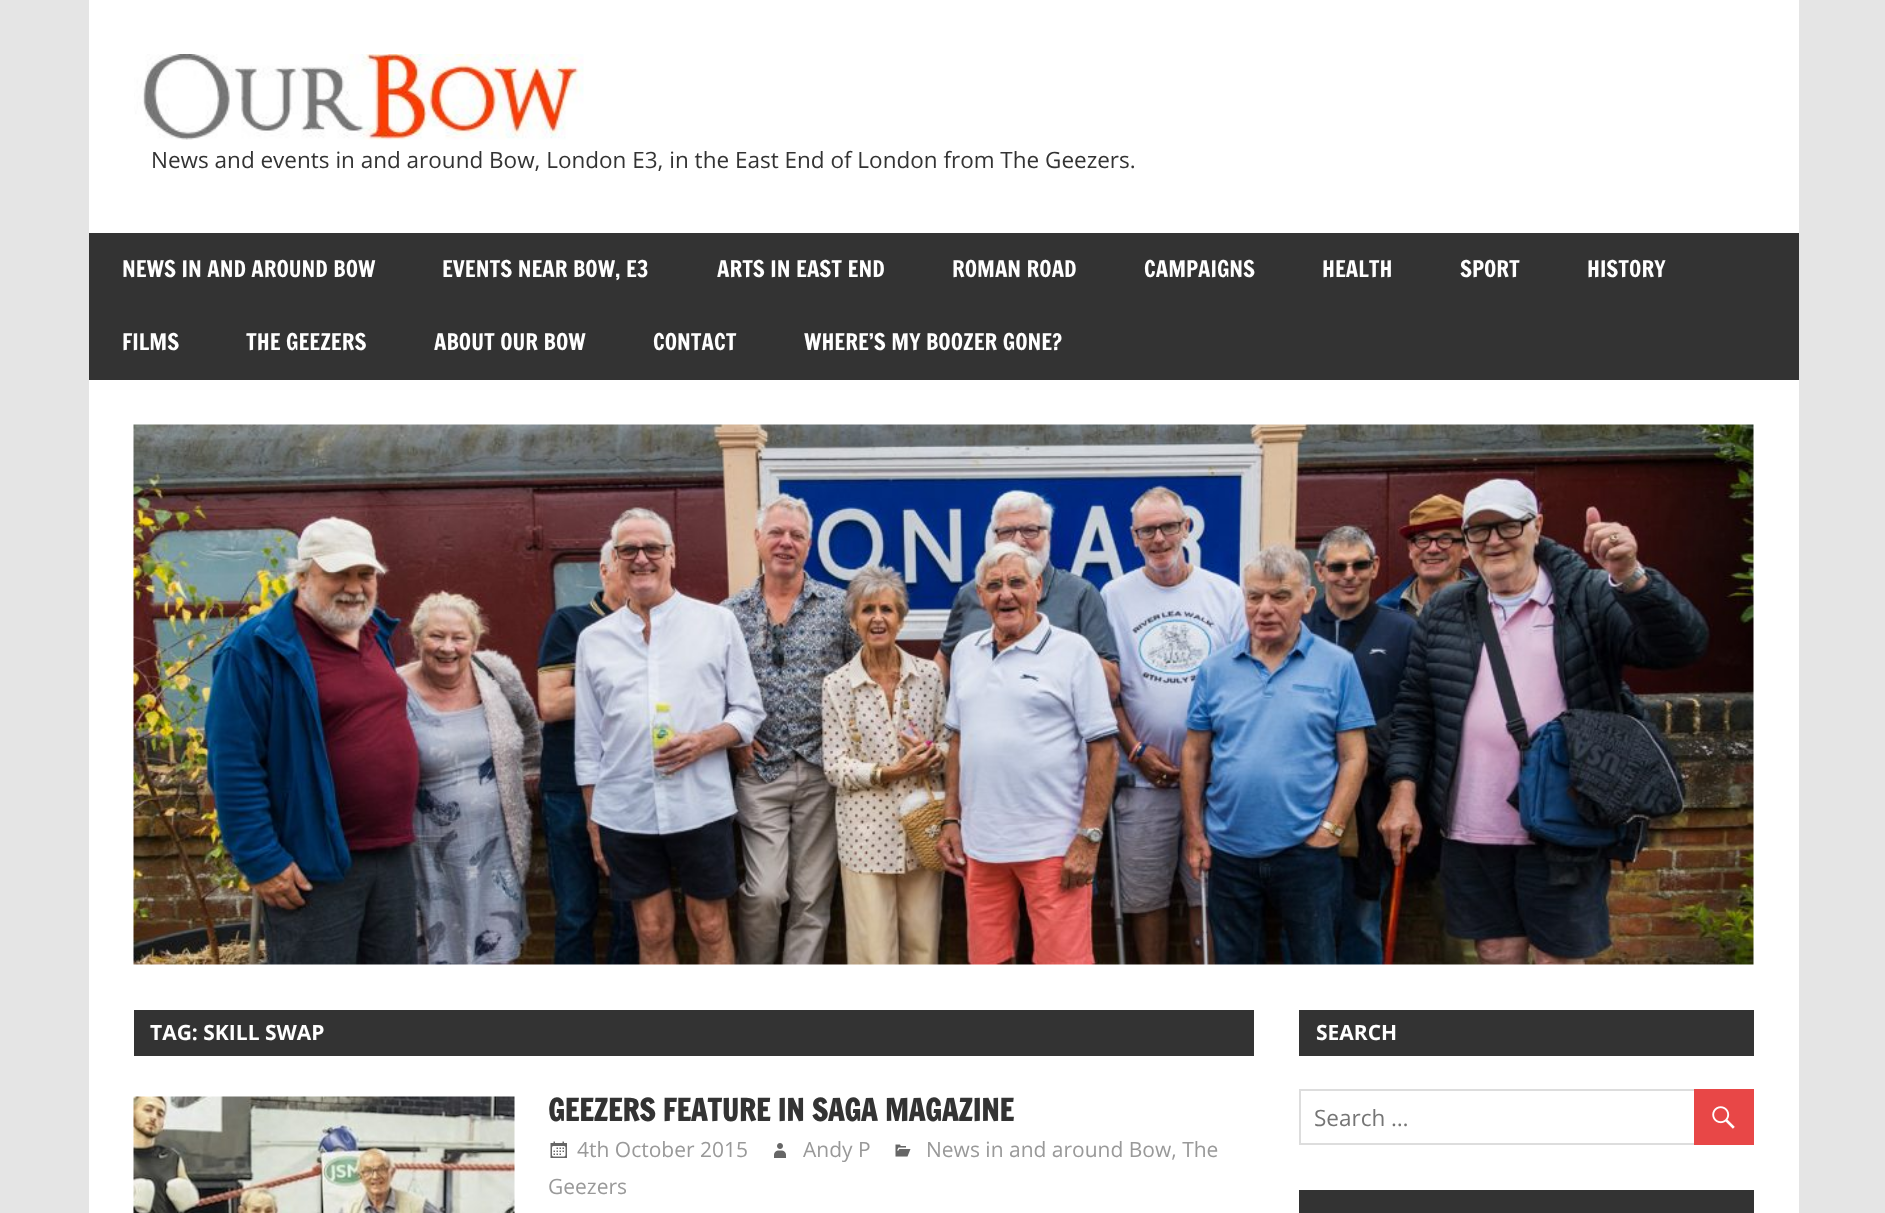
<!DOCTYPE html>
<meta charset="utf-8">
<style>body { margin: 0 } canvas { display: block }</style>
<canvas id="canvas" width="1885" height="1213"></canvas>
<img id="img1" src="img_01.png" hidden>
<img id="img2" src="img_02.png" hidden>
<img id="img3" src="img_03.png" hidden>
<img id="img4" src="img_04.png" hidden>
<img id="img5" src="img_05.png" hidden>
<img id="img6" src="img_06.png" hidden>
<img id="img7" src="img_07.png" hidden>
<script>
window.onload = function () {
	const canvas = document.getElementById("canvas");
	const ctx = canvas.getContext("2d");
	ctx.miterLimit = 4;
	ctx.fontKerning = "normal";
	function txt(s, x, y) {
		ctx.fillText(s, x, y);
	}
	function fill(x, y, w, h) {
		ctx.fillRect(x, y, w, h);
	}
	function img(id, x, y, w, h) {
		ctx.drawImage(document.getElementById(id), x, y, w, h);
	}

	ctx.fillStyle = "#E5E5E5";
	fill(0, 0, 1885, 1213);
	ctx.fillStyle = "#FFFFFF";
	fill(89, 0, 1710, 1213);
	img("img1", 134, 54, 450, 86);
	ctx.fillStyle = "#333333";
	fill(89, 233, 1710, 147);
	img("img2", 133, 424, 1621, 541);
	fill(134, 1010, 1120, 46);
	img("img3", 133, 1096, 382, 117);
	img("img4", 895, 1144, 16, 13);
	img("img5", 550, 1141, 17, 17);
	img("img6", 774, 1143, 12, 15);
	fill(1299, 1010, 455, 46);
	ctx.strokeStyle = "#DDDDDD";
	ctx.lineWidth = 2;
	ctx.strokeRect(1300, 1090, 453, 54);
	ctx.fillStyle = "#E84747";
	fill(1694, 1089, 60, 56);
	img("img7", 1712, 1106, 23, 23);
	ctx.fillStyle = "#333333";
	fill(1299, 1190, 455, 23);
	ctx.font = "22.5px Open Sans";
	txt("News and events in and around Bow, London E3, in the East End of London from The Geezers.", 151, 168);
	ctx.font = "22.5px Francois One";
	ctx.fillStyle = "#FFFFFF";
	txt("NEWS IN AND AROUND BOW", 122, 277);
	txt("EVENTS NEAR BOW, E3", 442, 277);
	txt("ARTS IN EAST END", 717, 277);
	txt("ROMAN ROAD", 952, 277);
	txt("CAMPAIGNS", 1144, 277);
	txt("HEALTH", 1322, 277);
	txt("SPORT", 1460, 277);
	txt("HISTORY", 1587, 277);
	txt("FILMS", 122, 350);
	txt("THE GEEZERS", 246, 350);
	txt("ABOUT OUR BOW", 434, 350);
	txt("CONTACT", 653, 350);
	txt("WHERE’S MY BOOZER GONE?", 804, 350);
	ctx.font = "bold 21px Open Sans";
	txt("TAG: SKILL SWAP", 150, 1040);
	ctx.font = "bold 30px Francois One";
	ctx.fillStyle = "#333333";
	txt("GEEZERS FEATURE IN SAGA MAGAZINE", 548, 1121);
	ctx.font = "21px Open Sans";
	ctx.fillStyle = "#999999";
	txt("News in and around Bow, The", 926, 1157);
	txt("Geezers", 548, 1194);
	txt("4th October 2015", 577, 1157);
	txt("Andy P", 803, 1157);
	ctx.font = "bold 21px Open Sans";
	ctx.fillStyle = "#FFFFFF";
	txt("SEARCH", 1316, 1040);
	ctx.font = "22.5px Open Sans";
	ctx.fillStyle = "#757575";
	txt("Search …", 1314, 1126);
};
</script>
